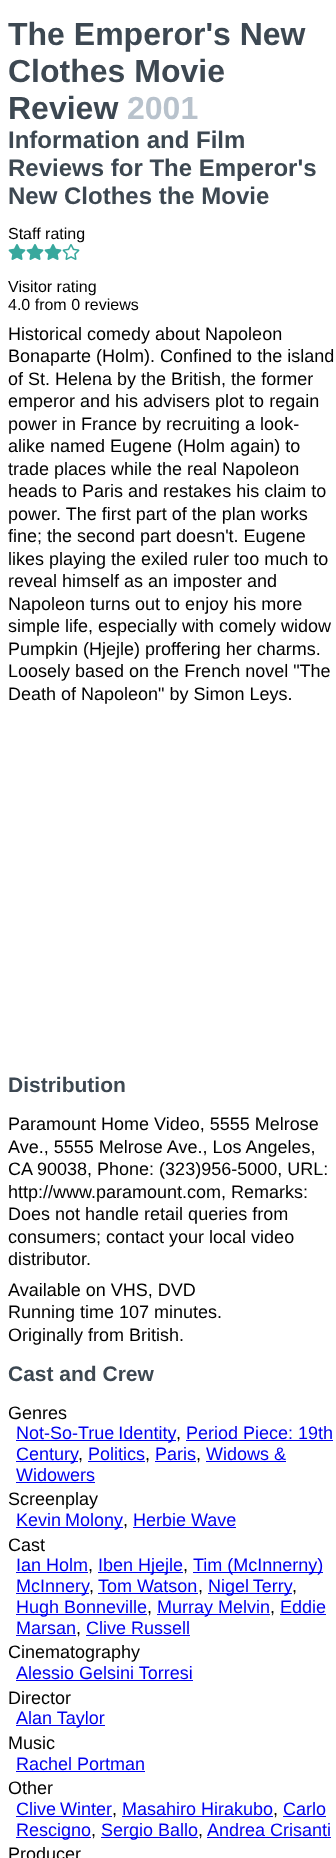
<!DOCTYPE html>
<meta charset="utf-8">
<style>body { margin: 0 } canvas { display: block }</style>
<canvas id="canvas" width="336" height="1858"></canvas>
<img id="img1" src="img_01.png" hidden>
<img id="img2" src="img_02.png" hidden>
<script>
window.onload = function () {
	const canvas = document.getElementById("canvas");
	const ctx = canvas.getContext("2d");
	ctx.miterLimit = 4;
	ctx.fontKerning = "normal";
	function txt(s, x, y) {
		ctx.fillText(s, x, y);
	}
	function fill(x, y, w, h) {
		ctx.fillRect(x, y, w, h);
	}
	function img(id, x, y, w, h) {
		ctx.drawImage(document.getElementById(id), x, y, w, h);
	}

	ctx.fillStyle = "#FFFFFF";
	fill(0, 0, 336, 1858);
	img("img1", 8, 244, 18, 16);
	img("img1", 26, 244, 18, 16);
	img("img1", 44, 244, 18, 16);
	img("img2", 62, 244, 18, 16);
	ctx.fillStyle = "#0000EE";
	fill(16, 1440, 160, 1);
	fill(186, 1440, 147, 1);
	fill(16, 1461, 62, 1);
	fill(88, 1461, 57, 1);
	fill(155, 1461, 41, 1);
	fill(206, 1461, 80, 1);
	fill(16, 1482, 79, 1);
	fill(16, 1527, 107, 1);
	fill(133, 1527, 103, 1);
	fill(16, 1572, 72, 1);
	fill(98, 1572, 85, 1);
	fill(193, 1572, 130, 1);
	fill(16, 1593, 73, 1);
	fill(98, 1593, 100, 1);
	fill(208, 1593, 84, 1);
	fill(16, 1614, 131, 1);
	fill(157, 1614, 113, 1);
	fill(280, 1614, 46, 1);
	fill(16, 1635, 60, 1);
	fill(86, 1635, 104, 1);
	fill(16, 1680, 177, 1);
	fill(16, 1725, 89, 1);
	fill(16, 1771, 129, 1);
	fill(16, 1816, 96, 1);
	fill(122, 1816, 151, 1);
	fill(283, 1816, 43, 1);
	fill(16, 1837, 75, 1);
	fill(101, 1837, 97, 1);
	fill(207, 1837, 124, 1);
	ctx.font = "bold 32px Liberation Sans";
	ctx.fillStyle = "#3D4852";
	txt("The Emperor's New", 8, 45);
	txt("Clothes Movie", 8, 82);
	txt("Review", 8, 119);
	ctx.fillStyle = "#B8C2CC";
	txt("2001", 127, 119);
	ctx.font = "bold 24px Liberation Sans";
	ctx.fillStyle = "#3D4852";
	txt("Information and Film", 8, 148);
	txt("Reviews for The Emperor's", 8, 176);
	txt("New Clothes the Movie", 8, 204);
	ctx.font = "16px Liberation Sans";
	ctx.fillStyle = "#000000";
	txt("Staff rating", 8, 239);
	txt("Visitor rating", 8, 292);
	txt("4.0 from 0 reviews", 8, 310);
	ctx.font = "18px Liberation Sans";
	txt("Historical comedy about Napoleon", 8, 340);
	txt("Bonaparte (Holm). Confined to the island", 8, 362);
	txt("of St. Helena by the British, the former", 8, 385);
	txt("emperor and his advisers plot to regain", 8, 407);
	txt("power in France by recruiting a look-", 8, 430);
	txt("alike named Eugene (Holm again) to", 8, 452);
	txt("trade places while the real Napoleon", 8, 475);
	txt("heads to Paris and restakes his claim to", 8, 497);
	txt("power. The first part of the plan works", 8, 520);
	txt("fine; the second part doesn't. Eugene", 8, 542);
	txt("likes playing the exiled ruler too much to", 8, 565);
	txt("reveal himself as an imposter and", 8, 587);
	txt("Napoleon turns out to enjoy his more", 8, 610);
	txt("simple life, especially with comely widow", 8, 632);
	txt("Pumpkin (Hjejle) proffering her charms.", 8, 655);
	txt("Loosely based on the French novel \"The", 8, 677);
	txt("Death of Napoleon\" by Simon Leys.", 8, 700);
	ctx.font = "bold 21px Liberation Sans";
	ctx.fillStyle = "#3D4852";
	txt("Distribution", 8, 1092);
	ctx.font = "18px Liberation Sans";
	ctx.fillStyle = "#000000";
	txt("Paramount Home Video, 5555 Melrose", 8, 1130);
	txt("Ave., 5555 Melrose Ave., Los Angeles,", 8, 1153);
	txt("CA 90038, Phone: (323)956-5000, URL:", 8, 1175);
	txt("http://www.paramount.com, Remarks:", 8, 1198);
	txt("Does not handle retail queries from", 8, 1220);
	txt("consumers; contact your local video", 8, 1243);
	txt("distributor.", 8, 1265);
	txt("Available on VHS, DVD", 8, 1296);
	txt("Running time 107 minutes.", 8, 1318);
	txt("Originally from British.", 8, 1341);
	ctx.font = "bold 21px Liberation Sans";
	ctx.fillStyle = "#3D4852";
	txt("Cast and Crew", 8, 1381);
	ctx.font = "18px Liberation Sans";
	ctx.fillStyle = "#000000";
	txt("Genres", 8, 1419);
	ctx.wordSpacing = "-1px";
	ctx.fillStyle = "#0000EE";
	txt("Not-So-True Identity", 16, 1439);
	ctx.wordSpacing = "0px";
	ctx.fillStyle = "#000000";
	txt(",", 176, 1439);
	ctx.fillStyle = "#0000EE";
	txt("Period Piece: 19th", 186, 1439);
	txt("Century", 16, 1460);
	ctx.fillStyle = "#000000";
	txt(",", 78, 1460);
	ctx.fillStyle = "#0000EE";
	txt("Politics", 88, 1460);
	ctx.fillStyle = "#000000";
	txt(",", 145, 1460);
	ctx.fillStyle = "#0000EE";
	txt("Paris", 155, 1460);
	ctx.fillStyle = "#000000";
	txt(",", 196, 1460);
	ctx.fillStyle = "#0000EE";
	txt("Widows &", 206, 1460);
	txt("Widowers", 16, 1481);
	ctx.fillStyle = "#000000";
	txt("Screenplay", 8, 1505);
	ctx.wordSpacing = "-1px";
	ctx.fillStyle = "#0000EE";
	txt("Kevin Molony", 16, 1526);
	ctx.wordSpacing = "0px";
	ctx.fillStyle = "#000000";
	txt(",", 123, 1526);
	ctx.fillStyle = "#0000EE";
	txt("Herbie Wave", 133, 1526);
	ctx.fillStyle = "#000000";
	txt("Cast", 8, 1551);
	ctx.fillStyle = "#0000EE";
	txt("Ian Holm", 16, 1571);
	ctx.fillStyle = "#000000";
	txt(",", 88, 1571);
	ctx.fillStyle = "#0000EE";
	txt("Iben Hjejle", 98, 1571);
	ctx.fillStyle = "#000000";
	txt(",", 183, 1571);
	ctx.fillStyle = "#0000EE";
	txt("Tim (McInnerny)", 193, 1571);
	txt("McInnery", 16, 1592);
	ctx.fillStyle = "#000000";
	txt(",", 89, 1592);
	ctx.fillStyle = "#0000EE";
	txt("Tom Watson", 98, 1592);
	ctx.fillStyle = "#000000";
	txt(",", 198, 1592);
	ctx.wordSpacing = "-1px";
	ctx.fillStyle = "#0000EE";
	txt("Nigel Terry", 208, 1592);
	ctx.wordSpacing = "0px";
	ctx.fillStyle = "#000000";
	txt(",", 292, 1592);
	ctx.fillStyle = "#0000EE";
	txt("Hugh Bonneville", 16, 1613);
	ctx.fillStyle = "#000000";
	txt(",", 147, 1613);
	ctx.fillStyle = "#0000EE";
	txt("Murray Melvin", 157, 1613);
	ctx.fillStyle = "#000000";
	txt(",", 270, 1613);
	ctx.fillStyle = "#0000EE";
	txt("Eddie", 280, 1613);
	txt("Marsan", 16, 1634);
	ctx.fillStyle = "#000000";
	txt(",", 76, 1634);
	ctx.fillStyle = "#0000EE";
	txt("Clive Russell", 86, 1634);
	ctx.fillStyle = "#000000";
	txt("Cinematography", 8, 1658);
	ctx.fillStyle = "#0000EE";
	txt("Alessio Gelsini Torresi", 16, 1679);
	ctx.fillStyle = "#000000";
	txt("Director", 8, 1704);
	ctx.fillStyle = "#0000EE";
	txt("Alan Taylor", 16, 1724);
	ctx.fillStyle = "#000000";
	txt("Music", 8, 1749);
	ctx.fillStyle = "#0000EE";
	txt("Rachel Portman", 16, 1770);
	ctx.fillStyle = "#000000";
	txt("Other", 8, 1794);
	ctx.wordSpacing = "-1px";
	ctx.fillStyle = "#0000EE";
	txt("Clive Winter", 16, 1815);
	ctx.wordSpacing = "0px";
	ctx.fillStyle = "#000000";
	txt(",", 112, 1815);
	ctx.fillStyle = "#0000EE";
	txt("Masahiro Hirakubo", 122, 1815);
	ctx.fillStyle = "#000000";
	txt(",", 273, 1815);
	ctx.fillStyle = "#0000EE";
	txt("Carlo", 283, 1815);
	txt("Rescigno", 16, 1836);
	ctx.fillStyle = "#000000";
	txt(",", 91, 1836);
	ctx.fillStyle = "#0000EE";
	txt("Sergio Ballo", 101, 1836);
	ctx.fillStyle = "#000000";
	txt(",", 198, 1836);
	ctx.fillStyle = "#0000EE";
	txt("Andrea Crisanti", 207, 1836);
	ctx.fillStyle = "#000000";
	txt("Producer", 8, 1860);
};
</script>
